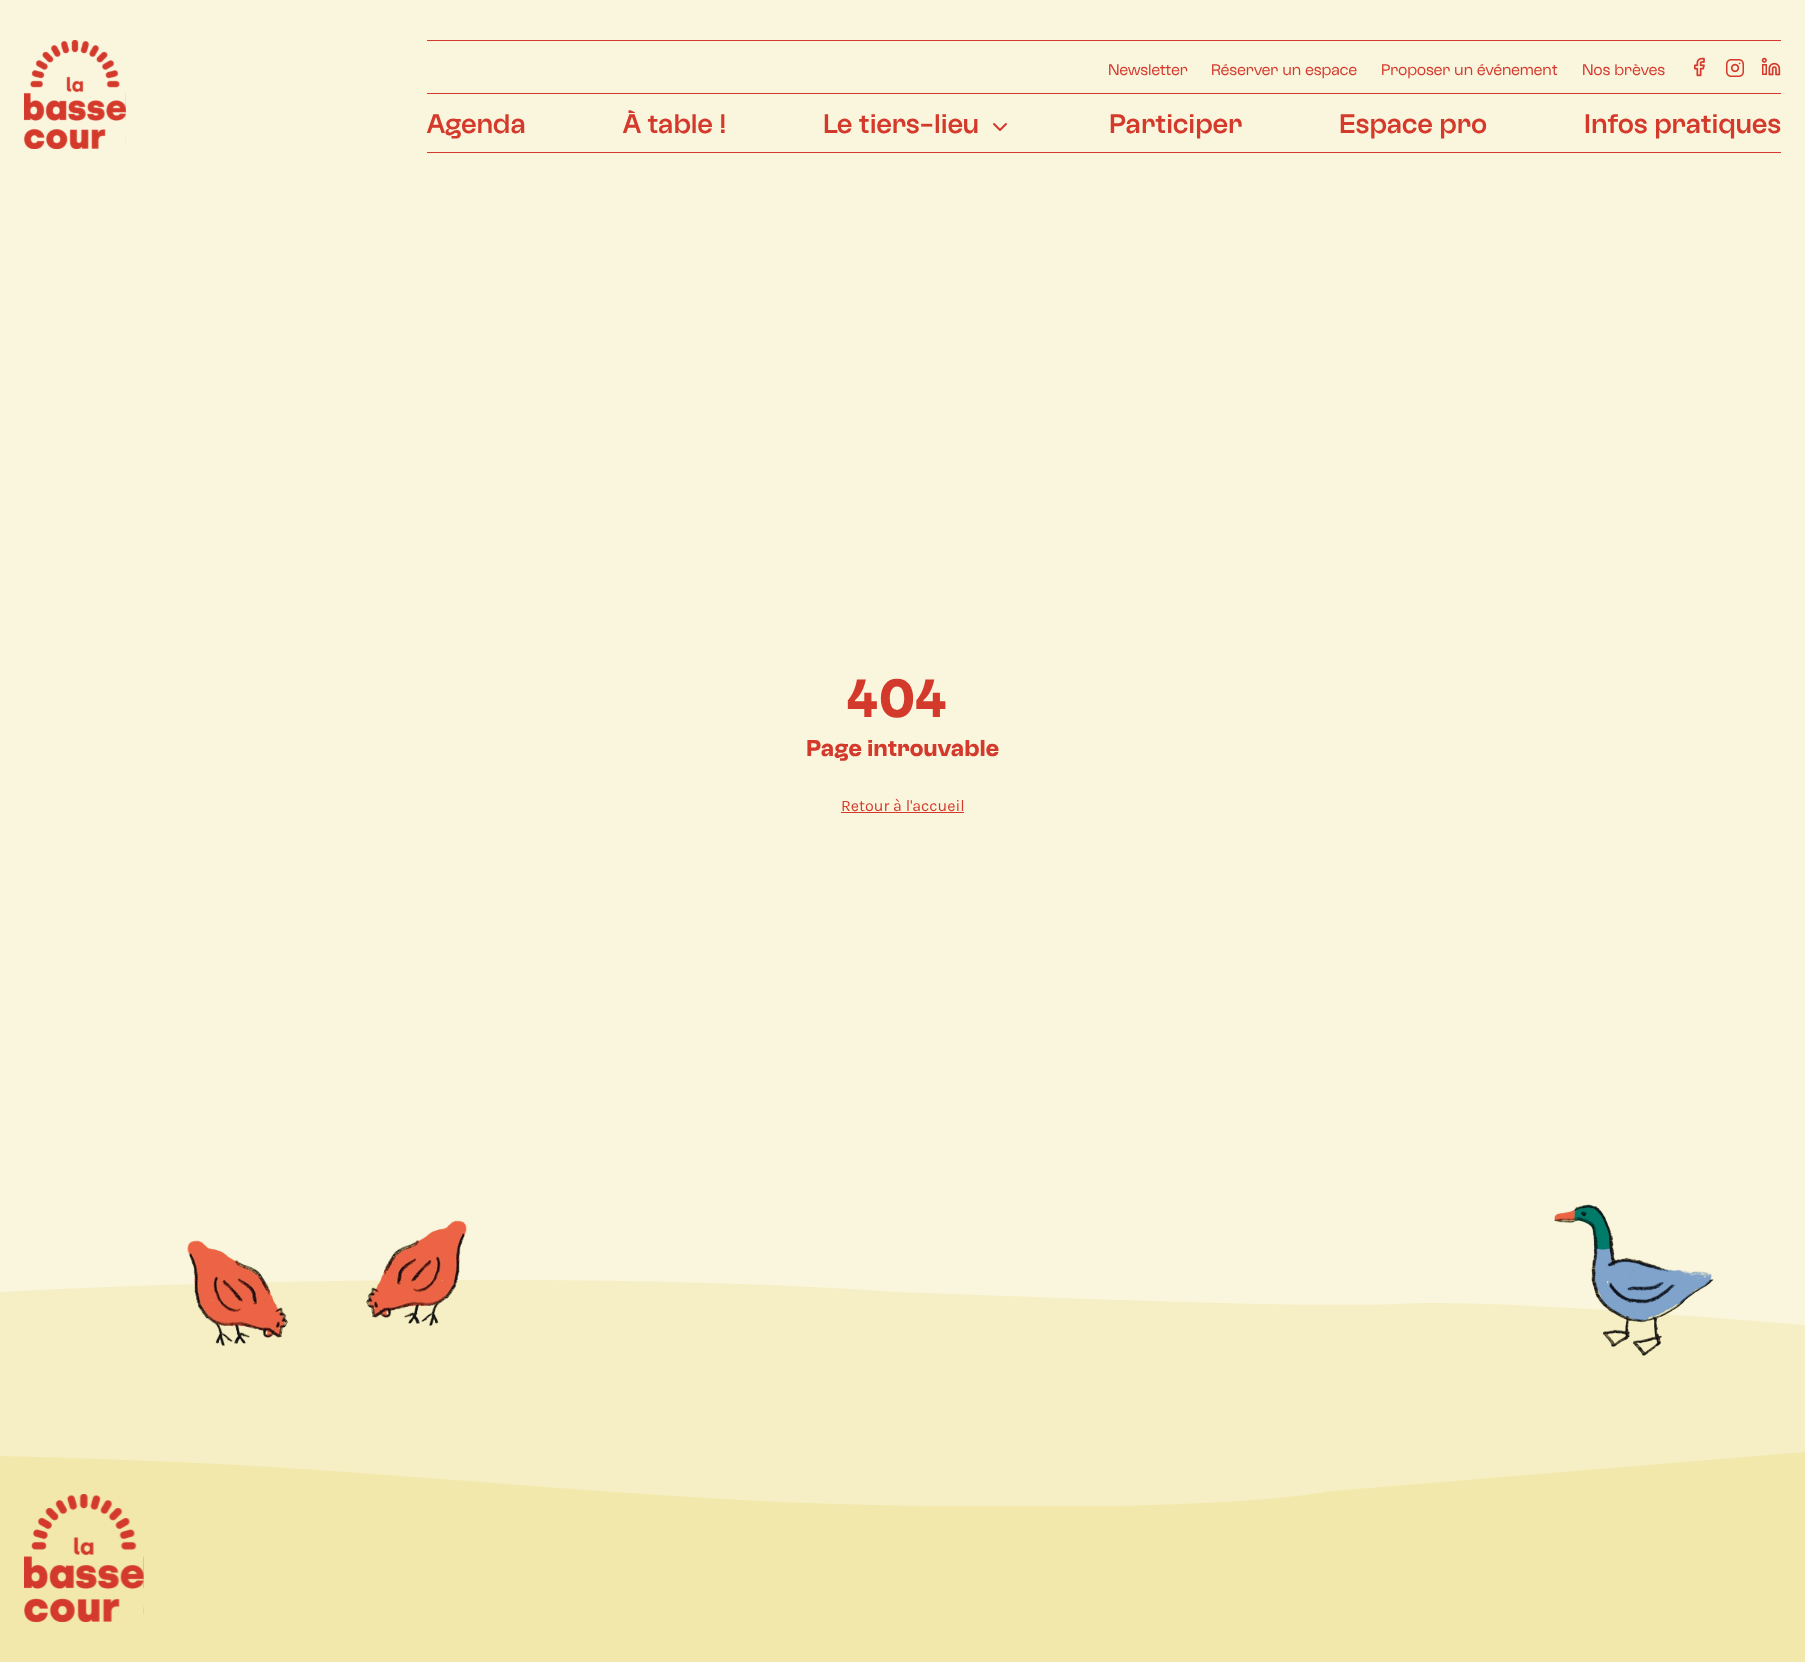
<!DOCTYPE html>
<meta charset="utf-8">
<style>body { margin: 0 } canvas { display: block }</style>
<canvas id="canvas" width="1805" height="1662"></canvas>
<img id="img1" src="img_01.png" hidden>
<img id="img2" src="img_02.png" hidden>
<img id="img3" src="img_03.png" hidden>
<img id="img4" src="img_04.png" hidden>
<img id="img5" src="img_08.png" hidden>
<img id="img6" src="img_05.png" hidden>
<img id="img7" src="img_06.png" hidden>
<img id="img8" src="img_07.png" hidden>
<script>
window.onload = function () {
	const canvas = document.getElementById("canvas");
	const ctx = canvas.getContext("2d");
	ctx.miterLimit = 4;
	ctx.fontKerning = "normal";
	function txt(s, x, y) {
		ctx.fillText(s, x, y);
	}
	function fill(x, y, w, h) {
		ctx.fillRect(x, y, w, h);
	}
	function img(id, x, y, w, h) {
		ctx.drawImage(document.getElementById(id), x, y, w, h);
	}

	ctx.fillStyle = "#FAF6DE";
	fill(0, 0, 1805, 1662);
	img("img1", 24, 40, 102, 109);
	ctx.fillStyle = "#D43A2C";
	fill(427, 40, 1354, 113);
	ctx.fillStyle = "#FAF6DE";
	fill(427, 41, 1354, 52);
	img("img2", 1694, 57, 11, 20);
	img("img3", 1726, 59, 18, 18);
	img("img4", 1761, 57, 20, 19);
	fill(427, 94, 1354, 58);
	ctx.beginPath();
	ctx.moveTo(994, 124);
	ctx.lineTo(1000, 130);
	ctx.lineTo(1006, 124);
	ctx.strokeStyle = "#D43A2C";
	ctx.lineWidth = 2;
	ctx.lineCap = "round";
	ctx.lineJoin = "round";
	ctx.stroke();
	ctx.fillStyle = "#D43A2C";
	fill(841, 812, 123, 1);
	ctx.fillStyle = "#F2E8AC";
	fill(0, 1452, 1805, 210);
	img("img5", 24, 1494, 120, 128);
	ctx.save();
	ctx.beginPath();
	ctx.rect(0, 1280, 1805, 226);
	ctx.clip();
	ctx.fillStyle = "#F6EFC5";
	ctx.beginPath();
	ctx.moveTo(895, 1292);
	ctx.bezierCurveTo(622, 1272, 214, 1280, 0, 1292);
	ctx.lineTo(0, 1456);
	ctx.bezierCurveTo(46, 1457, 109, 1459, 176, 1462);
	ctx.bezierCurveTo(408, 1472, 641, 1500, 873, 1505);
	ctx.bezierCurveTo(1052, 1509, 1237, 1507, 1333, 1491);
	ctx.lineTo(1805, 1452);
	ctx.lineTo(1805, 1325);
	ctx.bezierCurveTo(1687, 1316, 1487, 1299, 1394, 1304);
	ctx.bezierCurveTo(1298, 1308, 1042, 1297, 895, 1292);
	ctx.closePath();
	ctx.fill();
	ctx.restore();
	img("img6", 187, 1240, 101, 106);
	img("img7", 366, 1220, 101, 106);
	img("img8", 1554, 1204, 160, 152);
	ctx.font = "16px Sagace";
	ctx.fillStyle = "#D43A2C";
	txt("Newsletter", 1108, 75);
	txt("Réserver un espace", 1211, 75);
	txt("Proposer un événement", 1381, 75);
	txt("Nos brèves", 1582, 75);
	ctx.font = "500 28px Sagace";
	txt("Agenda", 427, 133);
	txt("À table !", 623, 133);
	txt("Le tiers-lieu", 823, 133);
	txt("Participer", 1109, 133);
	txt("Espace pro", 1339, 133);
	txt("Infos pratiques", 1584, 133);
	ctx.font = "bold 56px Sagace";
	txt("404", 846, 717);
	ctx.font = "bold 24px Sagace";
	txt("Page introuvable", 806, 756);
	ctx.font = "16px Karla";
	txt("Retour à l'accueil", 841, 811);
};
</script>
